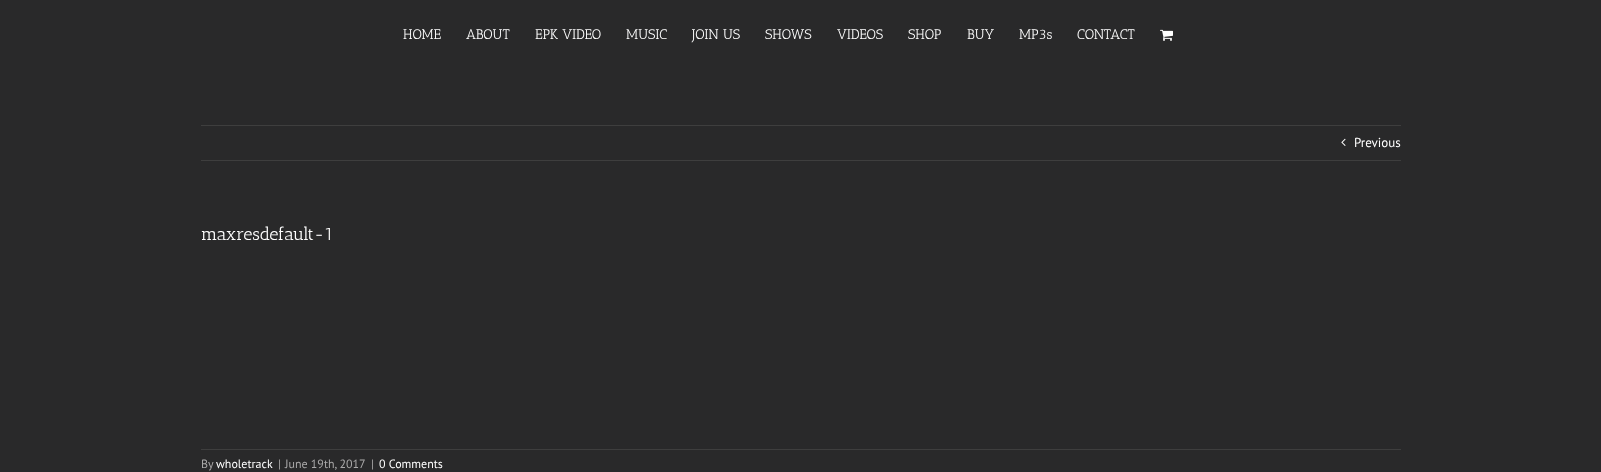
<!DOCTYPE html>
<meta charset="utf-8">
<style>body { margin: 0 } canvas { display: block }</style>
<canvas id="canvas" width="1601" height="472"></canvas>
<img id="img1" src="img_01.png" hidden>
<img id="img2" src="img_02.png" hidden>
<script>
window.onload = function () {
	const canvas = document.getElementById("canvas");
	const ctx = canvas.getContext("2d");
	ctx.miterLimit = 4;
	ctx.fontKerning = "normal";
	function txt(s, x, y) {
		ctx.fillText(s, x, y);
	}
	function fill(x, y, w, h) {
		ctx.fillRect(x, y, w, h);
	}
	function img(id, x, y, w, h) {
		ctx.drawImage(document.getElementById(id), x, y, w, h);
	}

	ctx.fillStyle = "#29292A";
	fill(0, 0, 1601, 472);
	img("img1", 1160, 29, 13, 12);
	ctx.fillStyle = "#3E3E3E";
	fill(201, 125, 1200, 1);
	fill(201, 160, 1200, 1);
	img("img2", 1341, 138, 5, 8);
	fill(201, 449, 1200, 1);
	ctx.font = "14px Antic Slab";
	ctx.fillStyle = "#FFFFFF";
	txt("HOME", 403, 39);
	txt("ABOUT", 466, 39);
	txt("EPK VIDEO", 535, 39);
	txt("MUSIC", 626, 39);
	txt("JOIN US", 692, 39);
	txt("SHOWS", 765, 39);
	txt("VIDEOS", 837, 39);
	txt("SHOP", 908, 39);
	txt("BUY", 967, 39);
	txt("MP3s", 1019, 39);
	txt("CONTACT", 1077, 39);
	ctx.font = "13px PT Sans";
	txt("Previous", 1354, 147);
	ctx.font = "18px Antic Slab";
	txt("maxresdefault-1", 201, 240);
	ctx.font = "12px PT Sans";
	ctx.fillStyle = "#AAA9A9";
	txt("By", 201, 468);
	ctx.fillStyle = "#FFFFFF";
	txt("wholetrack", 216, 468);
	ctx.fillStyle = "#AAA9A9";
	txt("|", 278, 468);
	txt("June 19th, 2017", 285, 468);
	txt("|", 371, 468);
	ctx.fillStyle = "#FFFFFF";
	txt("0 Comments", 379, 468);
};
</script>
